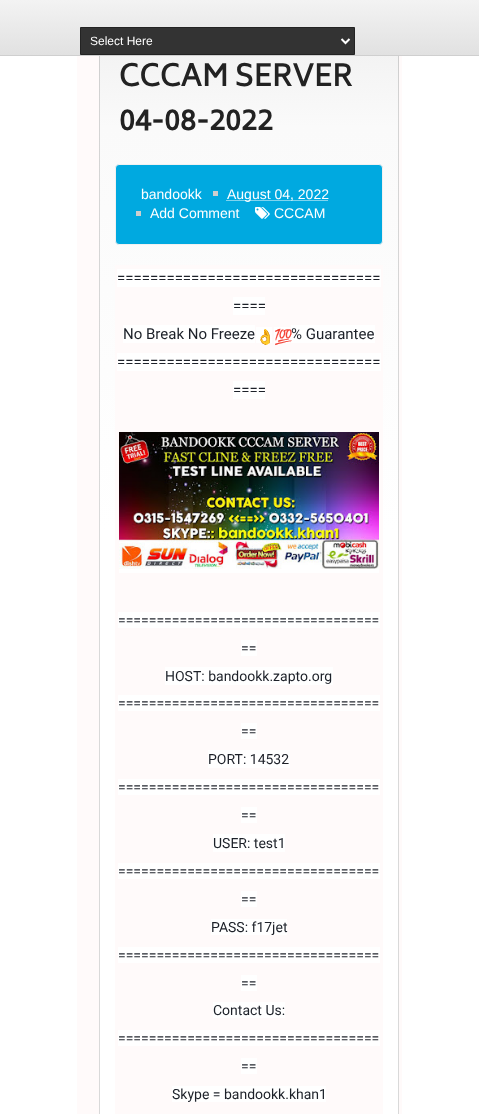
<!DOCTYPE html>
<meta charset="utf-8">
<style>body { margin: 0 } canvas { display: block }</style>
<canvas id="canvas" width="479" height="1114"></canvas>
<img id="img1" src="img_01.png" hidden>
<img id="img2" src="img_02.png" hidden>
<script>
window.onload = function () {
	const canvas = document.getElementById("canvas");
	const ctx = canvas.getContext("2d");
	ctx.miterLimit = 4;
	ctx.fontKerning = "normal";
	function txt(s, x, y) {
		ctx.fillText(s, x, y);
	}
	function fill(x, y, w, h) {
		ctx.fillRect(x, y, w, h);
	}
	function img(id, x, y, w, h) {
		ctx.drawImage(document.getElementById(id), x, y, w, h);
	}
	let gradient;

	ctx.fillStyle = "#FFFFFF";
	fill(0, 0, 479, 1114);
	ctx.fillStyle = "#FFFAFA";
	fill(77, 56, 325, 1058);
	gradient = ctx.createLinearGradient(249, -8, 249, 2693);
	gradient.addColorStop(0, "#EDEDED");
	gradient.addColorStop(0.05, "#FAFAFA");
	gradient.addColorStop(0.2, "#FFFFFF");
	gradient.addColorStop(1, "#FFFFFF");
	ctx.fillStyle = gradient;
	fill(99, 56, 300, 1058);
	ctx.strokeStyle = "rgba(0, 0, 0, 0.15)";
	ctx.strokeRect(99.5, -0.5, 299, 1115);
	gradient = ctx.createLinearGradient(240, 0, 240, 55);
	gradient.addColorStop(0, "#F3F3F3");
	gradient.addColorStop(1, "#E1E1E1");
	ctx.fillStyle = gradient;
	fill(0, 0, 479, 55);
	ctx.fillStyle = "#CFCFCF";
	fill(0, 55, 479, 1);
	ctx.fillStyle = "#333333";
	ctx.beginPath();
	ctx.rect(80.5, 27.5, 274, 27);
	ctx.fill();
	ctx.strokeStyle = "#232323";
	ctx.stroke();
	ctx.beginPath();
	ctx.moveTo(341.5, 39);
	ctx.lineTo(345.5, 43);
	ctx.lineTo(349.5, 39);
	ctx.strokeStyle = "#FFFFFF";
	ctx.lineWidth = 2;
	ctx.stroke();
	ctx.fillStyle = "#00A9E0";
	ctx.beginPath();
	ctx.roundRect(115.5, 164.5, 267, 80, 3.5);
	ctx.fill();
	ctx.strokeStyle = "#F1F1F1";
	ctx.lineWidth = 1;
	ctx.stroke();
	ctx.fillStyle = "#CECECE";
	fill(213, 191, 5, 5);
	ctx.beginPath();
	ctx.moveTo(226.5, 200.5);
	ctx.lineTo(328.5, 200.5);
	ctx.strokeStyle = "#FFFFFF";
	ctx.setLineDash([1, 1]);
	ctx.stroke();
	fill(136, 211, 5, 5);
	img("img1", 255, 207, 15, 12);
	ctx.fillStyle = "#FFFAFA";
	fill(115, 265, 268, 849);
	ctx.fillStyle = "#FFFFFF";
	fill(117, 269, 264, 18);
	fill(233, 297, 32, 18);
	fill(123, 325, 132, 18);
	fill(256, 327, 16, 16);
	fill(274, 327, 16, 16);
	fill(291, 325, 84, 18);
	fill(117, 353, 264, 18);
	fill(233, 381, 32, 18);
	img("img2", 119, 432, 260, 137);
	fill(119, 569, 260, 4);
	fill(118, 612, 262, 16);
	fill(241, 640, 16, 16);
	fill(165, 667, 168, 18);
	fill(118, 695, 262, 16);
	fill(241, 723, 16, 16);
	fill(208, 750, 82, 18);
	fill(118, 779, 262, 16);
	fill(241, 807, 16, 16);
	fill(213, 834, 72, 18);
	fill(118, 863, 262, 16);
	fill(241, 891, 16, 16);
	fill(211, 919, 76, 16);
	fill(118, 947, 262, 16);
	fill(241, 975, 16, 16);
	fill(213, 1002, 72, 16);
	fill(118, 1030, 262, 16);
	fill(241, 1058, 16, 16);
	fill(172, 1086, 154, 16);
	ctx.font = "12px Liberation Sans";
	txt("Select Here", 90, 45);
	ctx.font = "bold 29px Biryani";
	ctx.fillStyle = "#222222";
	txt("CCCAM SERVER", 119, 86);
	txt("04-08-2022", 119, 130);
	ctx.font = "14px Liberation Sans";
	ctx.fillStyle = "#FFFFFF";
	txt("bandookk", 141, 199);
	txt("August 04, 2022", 227, 199);
	txt("Add Comment", 150, 218);
	txt("CCCAM", 274, 218);
	ctx.font = "15px Roboto";
	ctx.fillStyle = "#1D2129";
	txt("================================", 117, 283);
	txt("====", 233, 311);
	txt("No Break No Freeze", 123, 339);
	ctx.font = "15px Noto Color Emoji";
	ctx.fillStyle = "#77797E";
	txt("👌", 256, 342);
	ctx.font = "15px Roboto";
	ctx.fillStyle = "#1D2129";
	txt("% Guarantee", 291, 339);
	ctx.font = "15px Noto Color Emoji";
	ctx.fillStyle = "#77797E";
	txt("💯", 274, 342);
	ctx.font = "15px Roboto";
	ctx.fillStyle = "#1D2129";
	txt("================================", 117, 367);
	txt("====", 233, 395);
	ctx.font = "14px Roboto";
	txt("==================================", 118, 625);
	txt("==", 241, 653);
	txt("HOST: bandookk.zapto.org", 165, 681);
	txt("==================================", 118, 708);
	txt("==", 241, 736);
	txt("PORT: 14532", 208, 764);
	txt("==================================", 118, 792);
	txt("==", 241, 820);
	txt("USER: test1", 213, 848);
	txt("==================================", 118, 876);
	txt("==", 241, 904);
	txt("PASS: f17jet", 211, 932);
	txt("==================================", 118, 960);
	txt("==", 241, 988);
	txt("Contact Us:", 213, 1015);
	txt("==================================", 118, 1043);
	txt("==", 241, 1071);
	txt("Skype = bandookk.khan1", 172, 1099);
};
</script>
